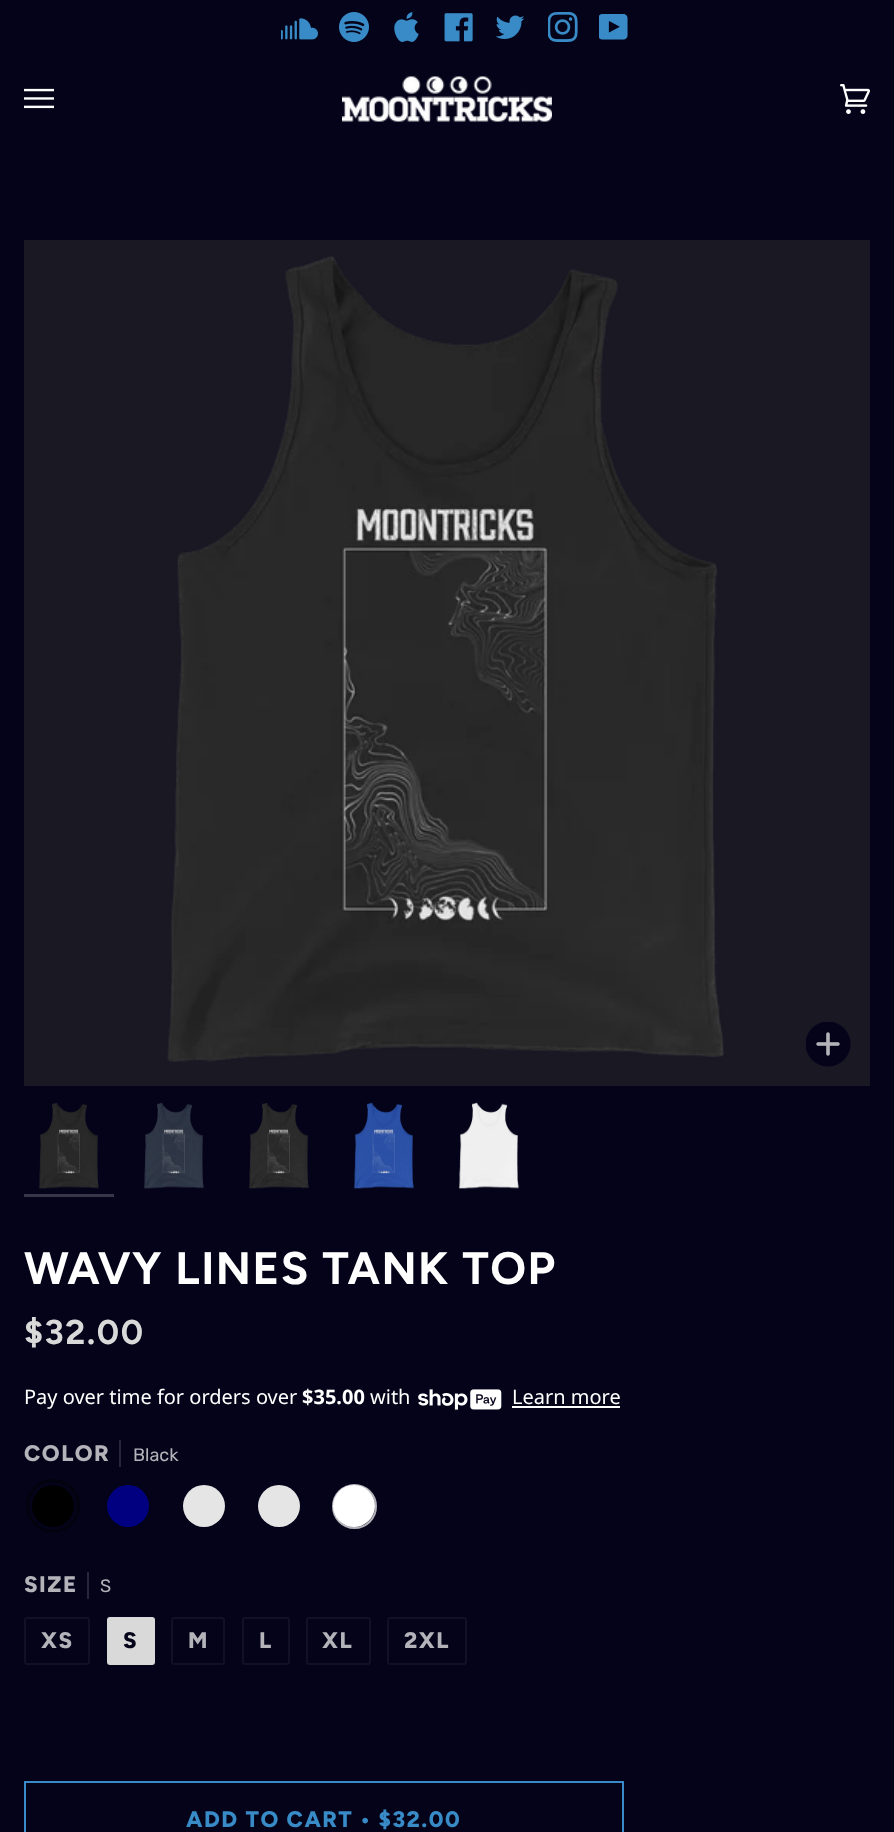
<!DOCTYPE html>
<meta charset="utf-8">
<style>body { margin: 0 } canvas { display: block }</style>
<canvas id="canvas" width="894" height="1832"></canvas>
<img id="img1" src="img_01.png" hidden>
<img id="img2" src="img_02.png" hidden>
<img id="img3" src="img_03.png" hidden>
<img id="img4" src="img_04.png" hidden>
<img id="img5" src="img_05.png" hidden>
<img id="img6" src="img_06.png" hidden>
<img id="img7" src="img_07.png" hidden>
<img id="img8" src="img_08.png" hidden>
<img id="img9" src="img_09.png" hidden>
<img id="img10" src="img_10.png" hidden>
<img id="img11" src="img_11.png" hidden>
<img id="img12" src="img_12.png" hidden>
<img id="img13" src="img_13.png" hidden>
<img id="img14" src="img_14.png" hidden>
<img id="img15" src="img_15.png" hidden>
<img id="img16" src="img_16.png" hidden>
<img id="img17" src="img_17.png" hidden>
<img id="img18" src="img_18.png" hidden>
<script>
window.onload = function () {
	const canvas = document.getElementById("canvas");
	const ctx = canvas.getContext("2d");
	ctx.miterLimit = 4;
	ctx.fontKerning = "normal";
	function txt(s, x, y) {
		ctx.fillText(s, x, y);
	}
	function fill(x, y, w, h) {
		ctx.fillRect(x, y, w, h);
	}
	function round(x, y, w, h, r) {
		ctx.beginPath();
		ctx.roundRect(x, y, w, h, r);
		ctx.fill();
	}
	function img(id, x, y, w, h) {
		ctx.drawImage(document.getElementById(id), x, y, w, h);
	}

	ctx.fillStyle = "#050319";
	fill(0, 0, 894, 1832);
	img("img1", 281, 18, 37, 22);
	img("img2", 339, 12, 30, 30);
	img("img3", 394, 12, 25, 30);
	img("img4", 444, 13, 29, 29);
	img("img5", 495, 15, 30, 24);
	img("img6", 548, 12, 30, 30);
	img("img7", 599, 14, 29, 26);
	img("img8", 24, 88, 30, 21);
	img("img9", 342, 76, 210, 46);
	img("img10", 840, 84, 30, 30);
	ctx.fillStyle = "#191823";
	fill(24, 240, 846, 846);
	img("img11", 167, 255, 557, 807);
	img("img12", 806, 1022, 45, 45);
	img("img13", 39, 1103, 60, 86);
	ctx.fillStyle = "#373547";
	fill(24, 1194, 90, 3);
	img("img14", 144, 1102, 60, 87);
	img("img15", 249, 1103, 60, 86);
	img("img16", 354, 1102, 60, 87);
	img("img17", 459, 1102, 60, 87);
	img("img18", 418, 1389, 84, 21);
	ctx.fillStyle = "#FFFFFF";
	fill(512, 1406, 108, 2);
	ctx.fillStyle = "#282639";
	fill(119, 1440, 2, 27);
	ctx.fillStyle = "#000000";
	ctx.beginPath();
	ctx.arc(53, 1506, 21, 0, Math.PI * 2);
	ctx.fill();
	ctx.beginPath();
	ctx.arc(53, 1506, 25.5, 0, Math.PI * 2);
	ctx.strokeStyle = "#03020F";
	ctx.lineWidth = 3;
	ctx.stroke();
	ctx.fillStyle = "#000080";
	ctx.beginPath();
	ctx.arc(128, 1506, 21, 0, Math.PI * 2);
	ctx.fill();
	ctx.fillStyle = "#E5E5E5";
	ctx.beginPath();
	ctx.arc(204, 1506, 21, 0, Math.PI * 2);
	ctx.fill();
	ctx.beginPath();
	ctx.arc(279, 1506, 21, 0, Math.PI * 2);
	ctx.fill();
	ctx.beginPath();
	ctx.arc(354.5, 1506.5, 21.5, 0, Math.PI * 2);
	ctx.strokeStyle = "#B4B3BA";
	ctx.lineWidth = 2;
	ctx.stroke();
	ctx.fillStyle = "#FFFFFF";
	ctx.beginPath();
	ctx.arc(354, 1506, 21, 0, Math.PI * 2);
	ctx.fill();
	ctx.fillStyle = "#282639";
	fill(87, 1572, 2, 27);
	ctx.beginPath();
	ctx.roundRect(25, 1618, 64, 46, 2);
	ctx.strokeStyle = "#121025";
	ctx.stroke();
	ctx.fillStyle = "#D9D9D9";
	round(107, 1617, 48, 48, 3);
	ctx.beginPath();
	ctx.roundRect(172, 1618, 52, 46, 2);
	ctx.stroke();
	ctx.beginPath();
	ctx.roundRect(243, 1618, 46, 46, 2);
	ctx.stroke();
	ctx.beginPath();
	ctx.roundRect(307, 1618, 63, 46, 2);
	ctx.stroke();
	ctx.beginPath();
	ctx.roundRect(388, 1618, 78, 46, 2);
	ctx.stroke();
	ctx.strokeStyle = "#388BC7";
	ctx.strokeRect(25, 1782, 598, 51);
	ctx.letterSpacing = "1.5px";
	ctx.font = "bold 45.5px Figtree";
	ctx.fillStyle = "#FFFFFF";
	txt("WAVY LINES TANK TOP", 24, 1284);
	ctx.font = "bold 34.5px Figtree";
	ctx.fillStyle = "#D9D9D9";
	txt("$32.00", 24, 1344);
	ctx.letterSpacing = "0px";
	ctx.font = "20px Noto Sans";
	ctx.fillStyle = "#FFFFFF";
	txt("Pay over time for orders over", 24, 1404);
	ctx.font = "bold 20px Noto Sans";
	txt("$35.00", 302, 1404);
	ctx.font = "20px Noto Sans";
	txt("with", 370, 1404);
	txt("Learn more", 512, 1404);
	ctx.letterSpacing = "1.5px";
	ctx.font = "800 22.5px Figtree";
	ctx.fillStyle = "#B4B3BA";
	txt("COLOR", 24, 1461);
	ctx.letterSpacing = "0px";
	ctx.font = "18px Rubik";
	txt("Black", 133, 1461);
	ctx.letterSpacing = "1.5px";
	ctx.font = "800 22.5px Figtree";
	txt("SIZE", 24, 1592);
	ctx.letterSpacing = "0px";
	ctx.font = "18px Rubik";
	txt("S", 100, 1592);
	ctx.letterSpacing = "1.5px";
	ctx.font = "800 22.5px Figtree";
	txt("XS", 41, 1648);
	ctx.fillStyle = "#050319";
	txt("S", 123, 1648);
	ctx.fillStyle = "#B4B3BA";
	txt("M", 188, 1648);
	txt("L", 259, 1648);
	txt("XL", 322, 1648);
	txt("2XL", 404, 1648);
	ctx.fillStyle = "#388BC7";
	txt("ADD TO CART • $32.00", 186, 1827);
};
</script>
